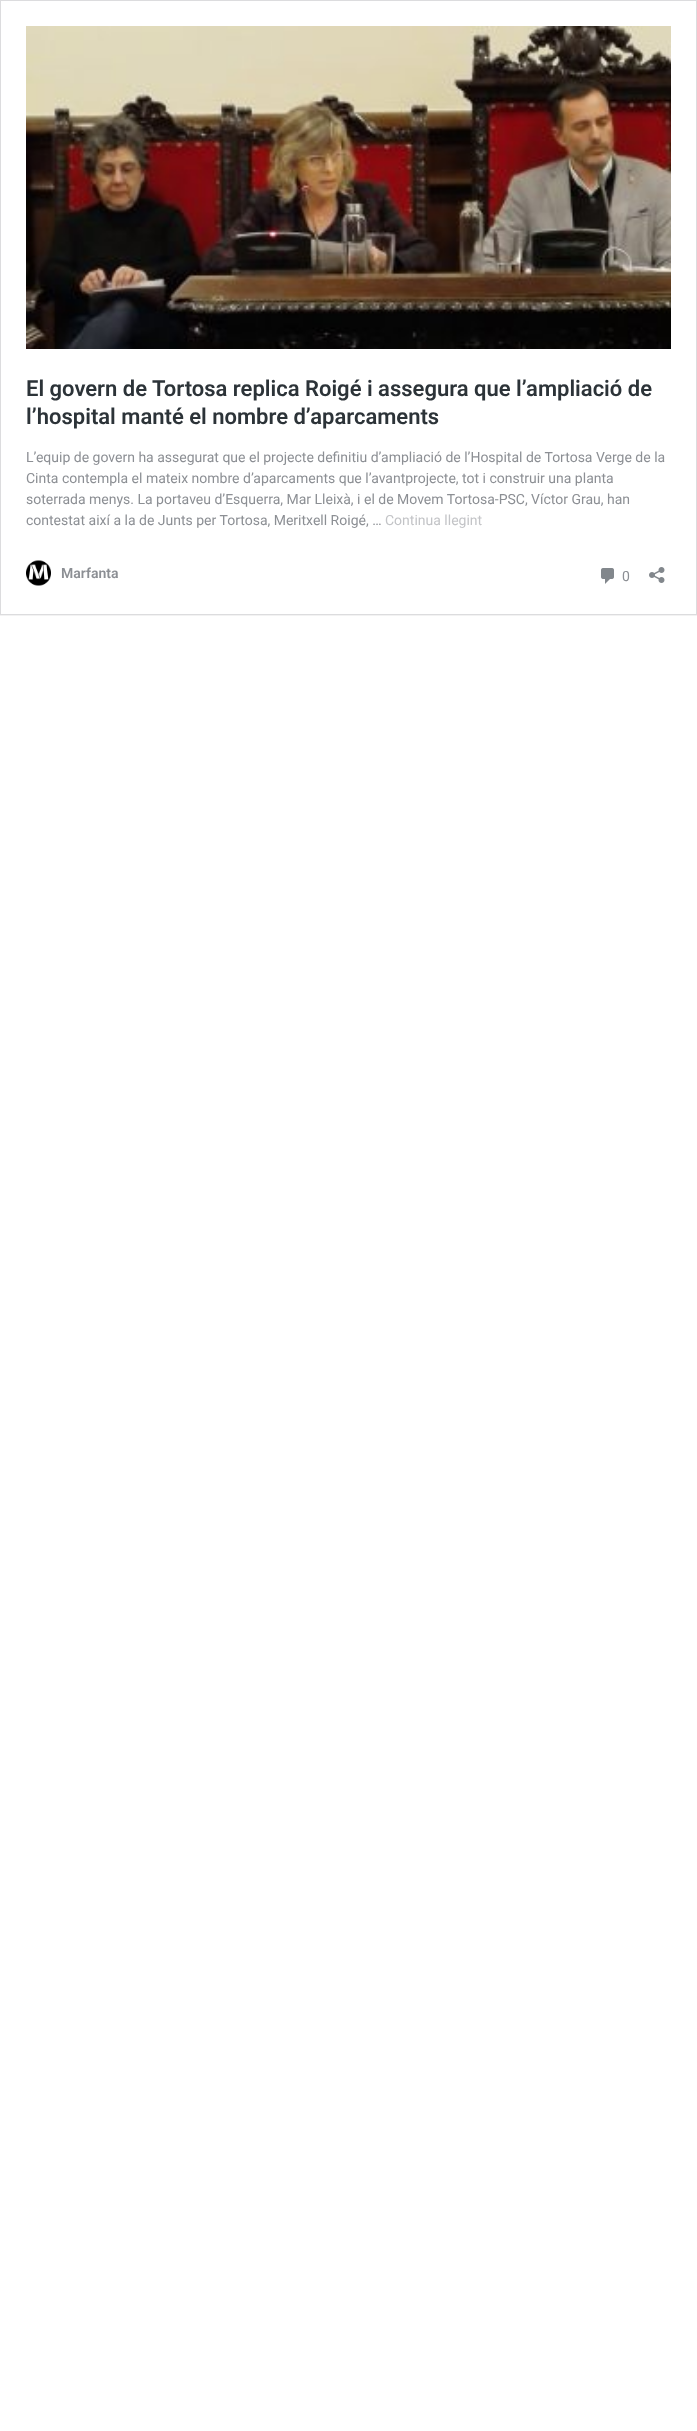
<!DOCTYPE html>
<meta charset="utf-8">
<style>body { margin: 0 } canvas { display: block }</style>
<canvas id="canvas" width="697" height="2431"></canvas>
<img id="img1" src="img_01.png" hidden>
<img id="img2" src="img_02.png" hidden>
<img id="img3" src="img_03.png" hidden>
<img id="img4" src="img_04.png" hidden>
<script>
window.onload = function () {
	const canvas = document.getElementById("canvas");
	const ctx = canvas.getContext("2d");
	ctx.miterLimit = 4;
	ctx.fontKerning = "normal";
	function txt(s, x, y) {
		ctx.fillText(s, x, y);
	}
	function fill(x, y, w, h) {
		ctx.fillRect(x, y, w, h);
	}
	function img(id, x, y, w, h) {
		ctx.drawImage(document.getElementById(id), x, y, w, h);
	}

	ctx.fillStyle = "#FFFFFF";
	fill(0, 0, 697, 2431);
	ctx.save();
	ctx.beginPath();
	ctx.rect(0, 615, 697, 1);
	ctx.clip();
	ctx.fillStyle = "rgba(0, 0, 0, 0.05)";
	ctx.filter = "blur(0.5px)";
	ctx.beginPath();
	ctx.rect(0, 1, 697, 615);
	ctx.fill();
	ctx.filter = "none";
	ctx.restore();
	ctx.strokeStyle = "#DCDCDE";
	ctx.strokeRect(0.5, 0.5, 696, 614);
	img("img1", 26, 26, 645, 323);
	img("img2", 26, 560, 25, 26);
	img("img3", 601, 568, 13, 16);
	img("img4", 649, 567, 16, 16);
	ctx.font = "600 22px Roboto";
	ctx.fillStyle = "#2C3338";
	txt("El govern de Tortosa replica Roigé i assegura que l’ampliació de", 26, 396);
	txt("l’hospital manté el nombre d’aparcaments", 26, 424);
	ctx.font = "14px Roboto";
	ctx.fillStyle = "#8C8F94";
	txt("L’equip de govern ha assegurat que el projecte definitiu d’ampliació de l’Hospital de Tortosa Verge de la", 26, 462);
	txt("Cinta contempla el mateix nombre d’aparcaments que l’avantprojecte, tot i construir una planta", 26, 483);
	txt("soterrada menys. La portaveu d’Esquerra, Mar Lleixà, i el de Movem Tortosa-PSC, Víctor Grau, han", 26, 504);
	txt("contestat així a la de Junts per Tortosa, Meritxell Roigé, …", 26, 525);
	ctx.fillStyle = "#C3C4C7";
	txt("Continua llegint", 385, 525);
	ctx.font = "600 14px Roboto";
	ctx.fillStyle = "#8C8F94";
	txt("Marfanta", 61, 578);
	ctx.font = "14px Roboto";
	txt("0", 622, 581);
};
</script>
